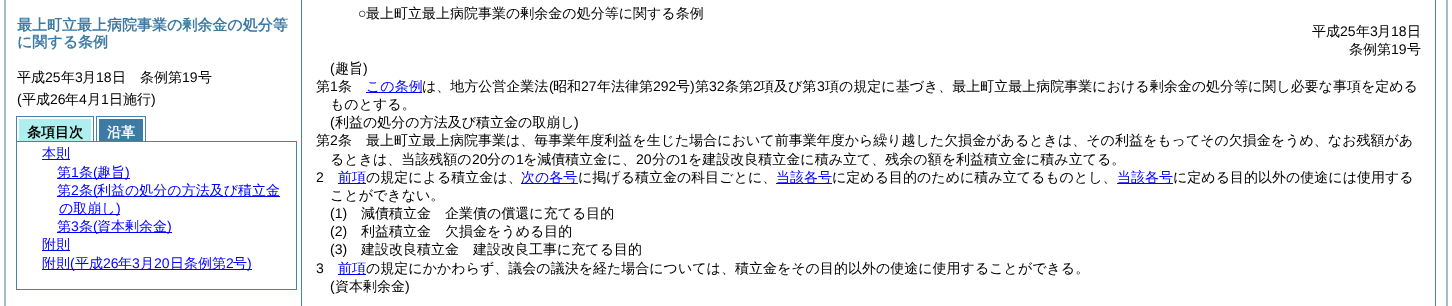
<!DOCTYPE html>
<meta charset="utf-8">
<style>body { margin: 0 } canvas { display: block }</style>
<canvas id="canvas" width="1452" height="306"></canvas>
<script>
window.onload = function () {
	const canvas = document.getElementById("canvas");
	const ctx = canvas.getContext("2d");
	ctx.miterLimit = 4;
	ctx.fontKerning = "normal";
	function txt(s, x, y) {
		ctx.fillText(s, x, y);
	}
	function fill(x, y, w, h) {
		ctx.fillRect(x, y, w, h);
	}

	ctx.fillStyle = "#FFFFFF";
	fill(0, 0, 1452, 306);
	ctx.strokeStyle = "#A0BFCC";
	ctx.lineWidth = 2;
	ctx.strokeRect(5, -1, 1442, 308);
	ctx.fillStyle = "#4682B4";
	fill(16, 116, 78, 1);
	fill(93, 116, 1, 26);
	fill(16, 116, 1, 26);
	ctx.fillStyle = "#AFEEEE";
	fill(19, 119, 72, 22);
	ctx.fillStyle = "#4682B4";
	fill(96, 116, 50, 1);
	fill(145, 116, 1, 26);
	fill(96, 116, 1, 26);
	ctx.fillStyle = "#3D7AA4";
	fill(99, 119, 44, 22);
	ctx.strokeStyle = "#4682B4";
	ctx.lineWidth = 1;
	ctx.strokeRect(16.5, 141.5, 280, 148);
	ctx.fillStyle = "#0000FF";
	fill(42, 159, 28, 1);
	fill(57, 178, 73, 1);
	fill(57, 196, 223, 1);
	fill(59, 214, 61, 1);
	fill(57, 232, 115, 1);
	fill(42, 250, 28, 1);
	fill(42, 269, 210, 1);
	ctx.strokeRect(301.5, -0.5, 1134, 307);
	fill(366, 92, 56, 1);
	fill(338, 183, 28, 1);
	fill(521, 183, 57, 1);
	fill(776, 183, 56, 1);
	fill(1117, 183, 56, 1);
	fill(338, 274, 28, 1);
	ctx.font = "bold 15px WenQuanYi Zen Hei";
	ctx.fillStyle = "#3D7AA4";
	txt("最上町立最上病院事業の剰余金の処分等", 17, 30);
	txt("に関する条例", 17, 47);
	ctx.font = "500 14px WenQuanYi Zen Hei";
	ctx.fillStyle = "#000000";
	txt("平成", 17, 82);
	ctx.font = "14px Liberation Sans";
	txt("25", 45, 82);
	ctx.font = "500 14px WenQuanYi Zen Hei";
	txt("年", 61, 82);
	ctx.font = "14px Liberation Sans";
	txt("3", 75, 82);
	ctx.font = "500 14px WenQuanYi Zen Hei";
	txt("月", 82, 82);
	ctx.font = "14px Liberation Sans";
	txt("18", 96, 82);
	ctx.font = "500 14px WenQuanYi Zen Hei";
	txt("日　条例第", 112, 82);
	ctx.font = "14px Liberation Sans";
	txt("19", 182, 82);
	ctx.font = "500 14px WenQuanYi Zen Hei";
	txt("号", 198, 82);
	ctx.font = "14px Liberation Sans";
	txt("(", 17, 104);
	ctx.font = "500 14px WenQuanYi Zen Hei";
	txt("平成", 22, 104);
	ctx.font = "14px Liberation Sans";
	txt("26", 50, 104);
	ctx.font = "500 14px WenQuanYi Zen Hei";
	txt("年", 65, 104);
	ctx.font = "14px Liberation Sans";
	txt("4", 79, 104);
	ctx.font = "500 14px WenQuanYi Zen Hei";
	txt("月", 87, 104);
	ctx.font = "14px Liberation Sans";
	txt("1", 101, 104);
	ctx.font = "500 14px WenQuanYi Zen Hei";
	txt("日施行", 109, 104);
	ctx.font = "14px Liberation Sans";
	txt(")", 151, 104);
	ctx.font = "bold 14px WenQuanYi Zen Hei";
	txt("条項目次", 27, 137);
	ctx.fillStyle = "#FFFFFF";
	txt("沿革", 107, 137);
	ctx.font = "500 14px WenQuanYi Zen Hei";
	ctx.fillStyle = "#0000FF";
	txt("本則", 42, 158);
	txt("第", 57, 177);
	ctx.font = "14px Liberation Sans";
	txt("1", 71, 177);
	ctx.font = "500 14px WenQuanYi Zen Hei";
	txt("条", 79, 177);
	ctx.font = "14px Liberation Sans";
	txt("(", 93, 177);
	ctx.font = "500 14px WenQuanYi Zen Hei";
	txt("趣旨", 97, 177);
	ctx.font = "14px Liberation Sans";
	txt(")", 125, 177);
	ctx.font = "500 14px WenQuanYi Zen Hei";
	txt("第", 57, 195);
	ctx.font = "14px Liberation Sans";
	txt("2", 71, 195);
	ctx.font = "500 14px WenQuanYi Zen Hei";
	txt("条", 79, 195);
	ctx.font = "14px Liberation Sans";
	txt("(", 93, 195);
	ctx.font = "500 14px WenQuanYi Zen Hei";
	txt("利益の処分の方法及び積立金", 97, 195);
	txt("の取崩し", 59, 213);
	ctx.font = "14px Liberation Sans";
	txt(")", 116, 213);
	ctx.font = "500 14px WenQuanYi Zen Hei";
	txt("第", 57, 231);
	ctx.font = "14px Liberation Sans";
	txt("3", 71, 231);
	ctx.font = "500 14px WenQuanYi Zen Hei";
	txt("条", 79, 231);
	ctx.font = "14px Liberation Sans";
	txt("(", 93, 231);
	ctx.font = "500 14px WenQuanYi Zen Hei";
	txt("資本剰余金", 97, 231);
	ctx.font = "14px Liberation Sans";
	txt(")", 167, 231);
	ctx.font = "500 14px WenQuanYi Zen Hei";
	txt("附則", 42, 249);
	txt("附則", 42, 268);
	ctx.font = "14px Liberation Sans";
	txt("(", 70, 268);
	ctx.font = "500 14px WenQuanYi Zen Hei";
	txt("平成", 75, 268);
	ctx.font = "14px Liberation Sans";
	txt("26", 103, 268);
	ctx.font = "500 14px WenQuanYi Zen Hei";
	txt("年", 118, 268);
	ctx.font = "14px Liberation Sans";
	txt("3", 132, 268);
	ctx.font = "500 14px WenQuanYi Zen Hei";
	txt("月", 140, 268);
	ctx.font = "14px Liberation Sans";
	txt("20", 154, 268);
	ctx.font = "500 14px WenQuanYi Zen Hei";
	txt("日条例第", 170, 268);
	ctx.font = "14px Liberation Sans";
	txt("2", 226, 268);
	ctx.font = "500 14px WenQuanYi Zen Hei";
	txt("号", 233, 268);
	ctx.font = "14px Liberation Sans";
	txt(")", 247, 268);
	ctx.fillStyle = "#000000";
	txt("○", 358, 18);
	ctx.font = "500 14px WenQuanYi Zen Hei";
	txt("最上町立最上病院事業の剰余金の処分等に関する条例", 366, 18);
	txt("平成", 1312, 36);
	ctx.font = "14px Liberation Sans";
	txt("25", 1340, 36);
	ctx.font = "500 14px WenQuanYi Zen Hei";
	txt("年", 1356, 36);
	ctx.font = "14px Liberation Sans";
	txt("3", 1370, 36);
	ctx.font = "500 14px WenQuanYi Zen Hei";
	txt("月", 1377, 36);
	ctx.font = "14px Liberation Sans";
	txt("18", 1391, 36);
	ctx.font = "500 14px WenQuanYi Zen Hei";
	txt("日", 1407, 36);
	txt("条例第", 1349, 54);
	ctx.font = "14px Liberation Sans";
	txt("19", 1391, 54);
	ctx.font = "500 14px WenQuanYi Zen Hei";
	txt("号", 1407, 54);
	ctx.font = "14px Liberation Sans";
	txt("(", 330, 73);
	ctx.font = "500 14px WenQuanYi Zen Hei";
	txt("趣旨", 335, 73);
	ctx.font = "14px Liberation Sans";
	txt(")", 363, 73);
	ctx.font = "500 14px WenQuanYi Zen Hei";
	txt("第", 316, 91);
	ctx.font = "14px Liberation Sans";
	txt("1", 330, 91);
	ctx.font = "500 14px WenQuanYi Zen Hei";
	txt("条", 338, 91);
	ctx.fillStyle = "#0000FF";
	txt("この条例", 366, 91);
	ctx.fillStyle = "#000000";
	txt("は、地方公営企業法", 422, 91);
	ctx.font = "14px Liberation Sans";
	txt("(", 549, 91);
	ctx.font = "500 14px WenQuanYi Zen Hei";
	txt("昭和", 553, 91);
	ctx.font = "14px Liberation Sans";
	txt("27", 581, 91);
	ctx.font = "500 14px WenQuanYi Zen Hei";
	txt("年法律第", 597, 91);
	ctx.font = "14px Liberation Sans";
	txt("292", 653, 91);
	ctx.font = "500 14px WenQuanYi Zen Hei";
	txt("号", 676, 91);
	ctx.font = "14px Liberation Sans";
	txt(")", 690, 91);
	ctx.font = "500 14px WenQuanYi Zen Hei";
	txt("第", 695, 91);
	ctx.font = "14px Liberation Sans";
	txt("32", 709, 91);
	ctx.font = "500 14px WenQuanYi Zen Hei";
	txt("条第", 725, 91);
	ctx.font = "14px Liberation Sans";
	txt("2", 753, 91);
	ctx.font = "500 14px WenQuanYi Zen Hei";
	txt("項及び第", 760, 91);
	ctx.font = "14px Liberation Sans";
	txt("3", 817, 91);
	ctx.font = "500 14px WenQuanYi Zen Hei";
	txt("項の規定に基づき、最上町立最上病院事業における剰余金の処分等に関し必要な事項を定める", 825, 91);
	txt("ものとする。", 330, 109);
	ctx.font = "14px Liberation Sans";
	txt("(", 330, 127);
	ctx.font = "500 14px WenQuanYi Zen Hei";
	txt("利益の処分の方法及び積立金の取崩し", 335, 127);
	ctx.font = "14px Liberation Sans";
	txt(")", 574, 127);
	ctx.font = "500 14px WenQuanYi Zen Hei";
	txt("第", 316, 145);
	ctx.font = "14px Liberation Sans";
	txt("2", 330, 145);
	ctx.font = "500 14px WenQuanYi Zen Hei";
	txt("条", 338, 145);
	txt("最上町立最上病院事業は、毎事業年度利益を生じた場合において前事業年度から繰り越した欠損金があるときは、その利益をもってその欠損金をうめ、なお残額があ", 366, 145);
	txt("るときは、当該残額の", 330, 164);
	ctx.font = "14px Liberation Sans";
	txt("20", 472, 164);
	ctx.font = "500 14px WenQuanYi Zen Hei";
	txt("分の", 487, 164);
	ctx.font = "14px Liberation Sans";
	txt("1", 516, 164);
	ctx.font = "500 14px WenQuanYi Zen Hei";
	txt("を減債積立金に、", 523, 164);
	ctx.font = "14px Liberation Sans";
	txt("20", 636, 164);
	ctx.font = "500 14px WenQuanYi Zen Hei";
	txt("分の", 652, 164);
	ctx.font = "14px Liberation Sans";
	txt("1", 680, 164);
	ctx.font = "500 14px WenQuanYi Zen Hei";
	txt("を建設改良積立金に積み立て、残余の額を利益積立金に積み立てる。", 688, 164);
	ctx.font = "14px Liberation Sans";
	txt("2", 316, 182);
	ctx.font = "500 14px WenQuanYi Zen Hei";
	ctx.fillStyle = "#0000FF";
	txt("前項", 338, 182);
	ctx.fillStyle = "#000000";
	txt("の規定による積立金は、", 366, 182);
	ctx.fillStyle = "#0000FF";
	txt("次の各号", 521, 182);
	ctx.fillStyle = "#000000";
	txt("に掲げる積立金の科目ごとに、", 578, 182);
	ctx.fillStyle = "#0000FF";
	txt("当該各号", 776, 182);
	ctx.fillStyle = "#000000";
	txt("に定める目的のために積み立てるものとし、", 832, 182);
	ctx.fillStyle = "#0000FF";
	txt("当該各号", 1117, 182);
	ctx.fillStyle = "#000000";
	txt("に定める目的以外の使途には使用する", 1173, 182);
	txt("ことができない。", 330, 200);
	ctx.font = "14px Liberation Sans";
	txt("(1)", 330, 218);
	ctx.font = "500 14px WenQuanYi Zen Hei";
	txt("減債積立金　企業債の償還に充てる目的", 361, 218);
	ctx.font = "14px Liberation Sans";
	txt("(2)", 330, 236);
	ctx.font = "500 14px WenQuanYi Zen Hei";
	txt("利益積立金　欠損金をうめる目的", 361, 236);
	ctx.font = "14px Liberation Sans";
	txt("(3)", 330, 254);
	ctx.font = "500 14px WenQuanYi Zen Hei";
	txt("建設改良積立金　建設改良工事に充てる目的", 361, 254);
	ctx.font = "14px Liberation Sans";
	txt("3", 316, 273);
	ctx.font = "500 14px WenQuanYi Zen Hei";
	ctx.fillStyle = "#0000FF";
	txt("前項", 338, 273);
	ctx.fillStyle = "#000000";
	txt("の規定にかかわらず、議会の議決を経た場合については、積立金をその目的以外の使途に使用することができる。", 366, 273);
	ctx.font = "14px Liberation Sans";
	txt("(", 330, 291);
	ctx.font = "500 14px WenQuanYi Zen Hei";
	txt("資本剰余金", 335, 291);
	ctx.font = "14px Liberation Sans";
	txt(")", 405, 291);
};
</script>
